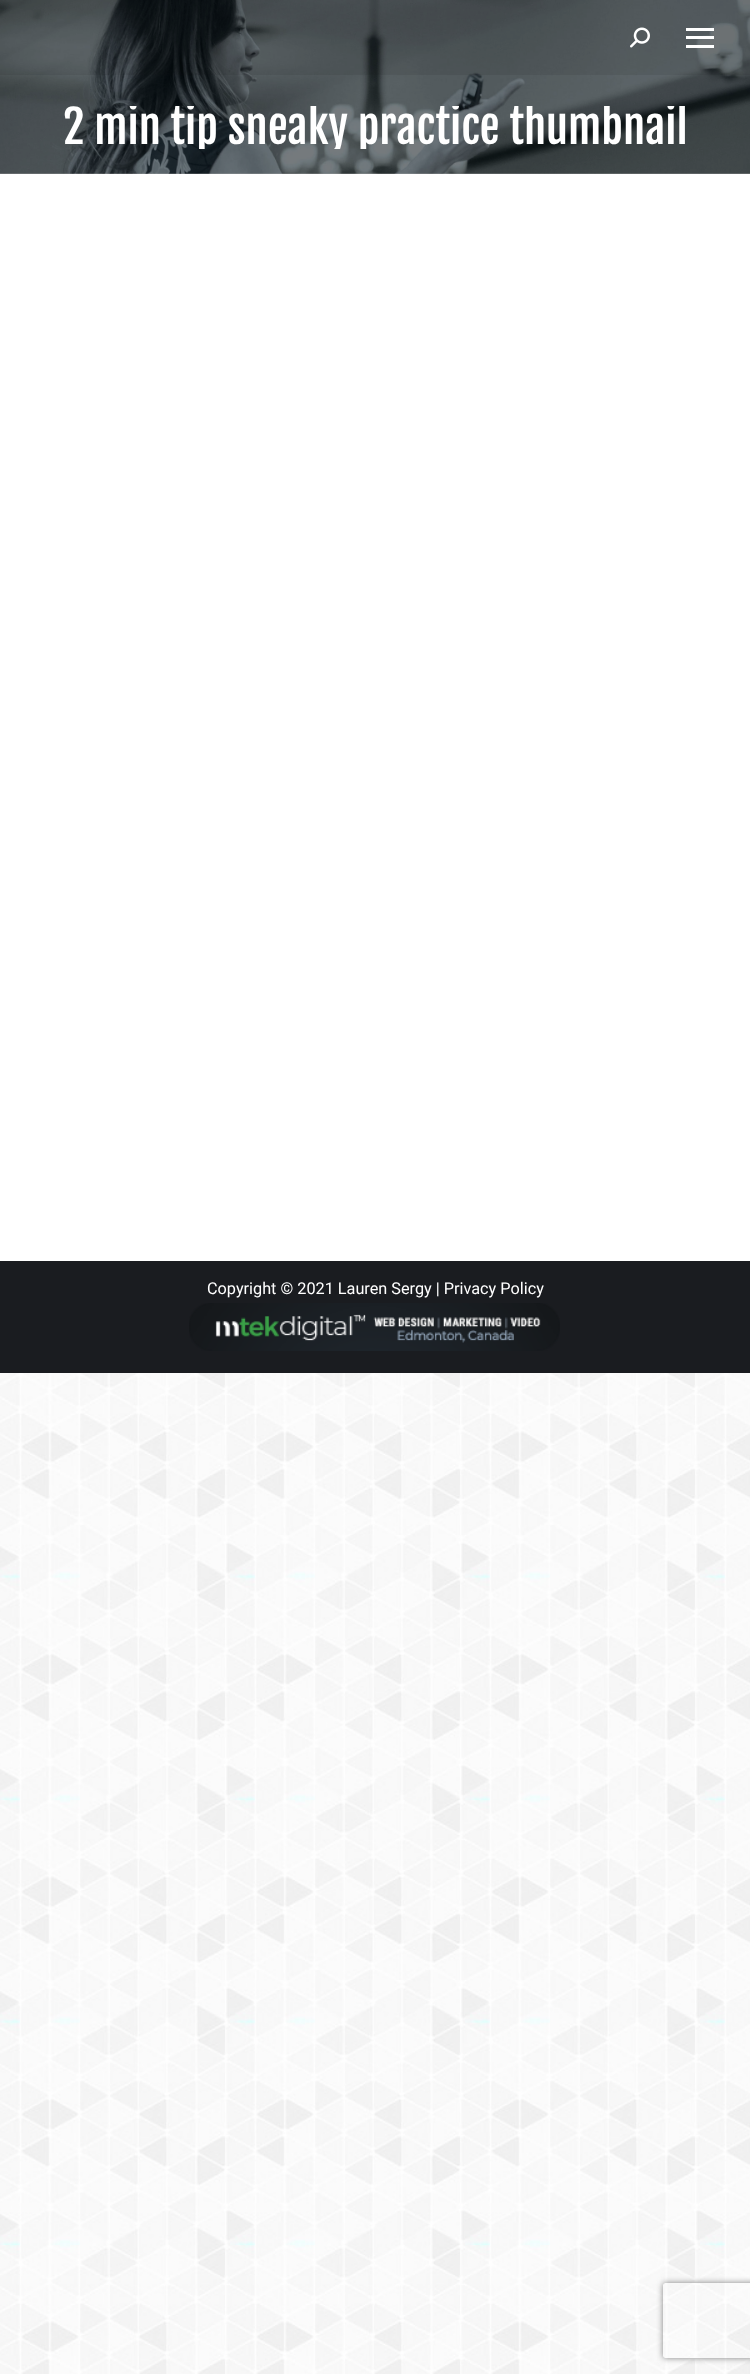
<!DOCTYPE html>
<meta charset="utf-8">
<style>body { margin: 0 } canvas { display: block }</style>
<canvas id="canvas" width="750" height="2374"></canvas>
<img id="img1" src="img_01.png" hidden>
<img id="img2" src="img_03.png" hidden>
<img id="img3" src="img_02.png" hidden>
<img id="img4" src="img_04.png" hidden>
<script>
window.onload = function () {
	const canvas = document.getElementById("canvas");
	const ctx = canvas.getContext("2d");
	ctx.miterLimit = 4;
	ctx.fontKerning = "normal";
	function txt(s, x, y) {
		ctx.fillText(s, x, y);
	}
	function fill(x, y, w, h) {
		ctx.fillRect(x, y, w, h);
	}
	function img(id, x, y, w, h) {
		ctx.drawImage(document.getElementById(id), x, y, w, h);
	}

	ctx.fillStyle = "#FFFFFF";
	fill(0, 0, 750, 2374);
	img("img1", 0, 1373, 750, 1001);
	img("img2", 0, 0, 750, 174);
	ctx.fillStyle = "rgba(10, 10, 10, 0.28)";
	fill(0, 0, 750, 174);
	ctx.fillStyle = "rgba(17, 17, 17, 0.09)";
	fill(0, 0, 750, 75);
	img("img3", 630, 27, 20, 21);
	ctx.fillStyle = "#FFFFFF";
	fill(686, 28, 28, 3);
	fill(686, 36, 28, 3);
	fill(686, 45, 28, 3);
	ctx.fillStyle = "#1A1C20";
	fill(0, 1261, 750, 112);
	img("img4", 189, 1303, 371, 48);
	ctx.save();
	ctx.beginPath();
	ctx.moveTo(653, 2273);
	ctx.lineTo(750, 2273);
	ctx.lineTo(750, 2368);
	ctx.lineTo(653, 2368);
	ctx.closePath();
	ctx.moveTo(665.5, 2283);
	ctx.lineTo(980.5, 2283);
	ctx.bezierCurveTo(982, 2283, 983, 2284, 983, 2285.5);
	ctx.lineTo(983, 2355.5);
	ctx.bezierCurveTo(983, 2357, 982, 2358, 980.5, 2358);
	ctx.lineTo(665.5, 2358);
	ctx.bezierCurveTo(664, 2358, 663, 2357, 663, 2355.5);
	ctx.lineTo(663, 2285.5);
	ctx.bezierCurveTo(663, 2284, 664, 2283, 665.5, 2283);
	ctx.closePath();
	ctx.clip("evenodd");
	ctx.fillStyle = "#808080";
	ctx.filter = "blur(3px)";
	ctx.beginPath();
	ctx.roundRect(663, 2283, 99, 75, 2.5);
	ctx.fill();
	ctx.filter = "none";
	ctx.restore();
	ctx.save();
	ctx.beginPath();
	ctx.rect(63, 106, 625, 43);
	ctx.clip();
	ctx.font = "45px Fjalla One";
	ctx.fillStyle = "#FFFFFF";
	txt("2 min tip sneaky practice thumbnail", 63, 144);
	ctx.restore();
	ctx.font = "16.25px Roboto";
	ctx.fillStyle = "#FFFFFF";
	txt("Copyright © 2021 Lauren Sergy | Privacy Policy", 207, 1294);
};
</script>
